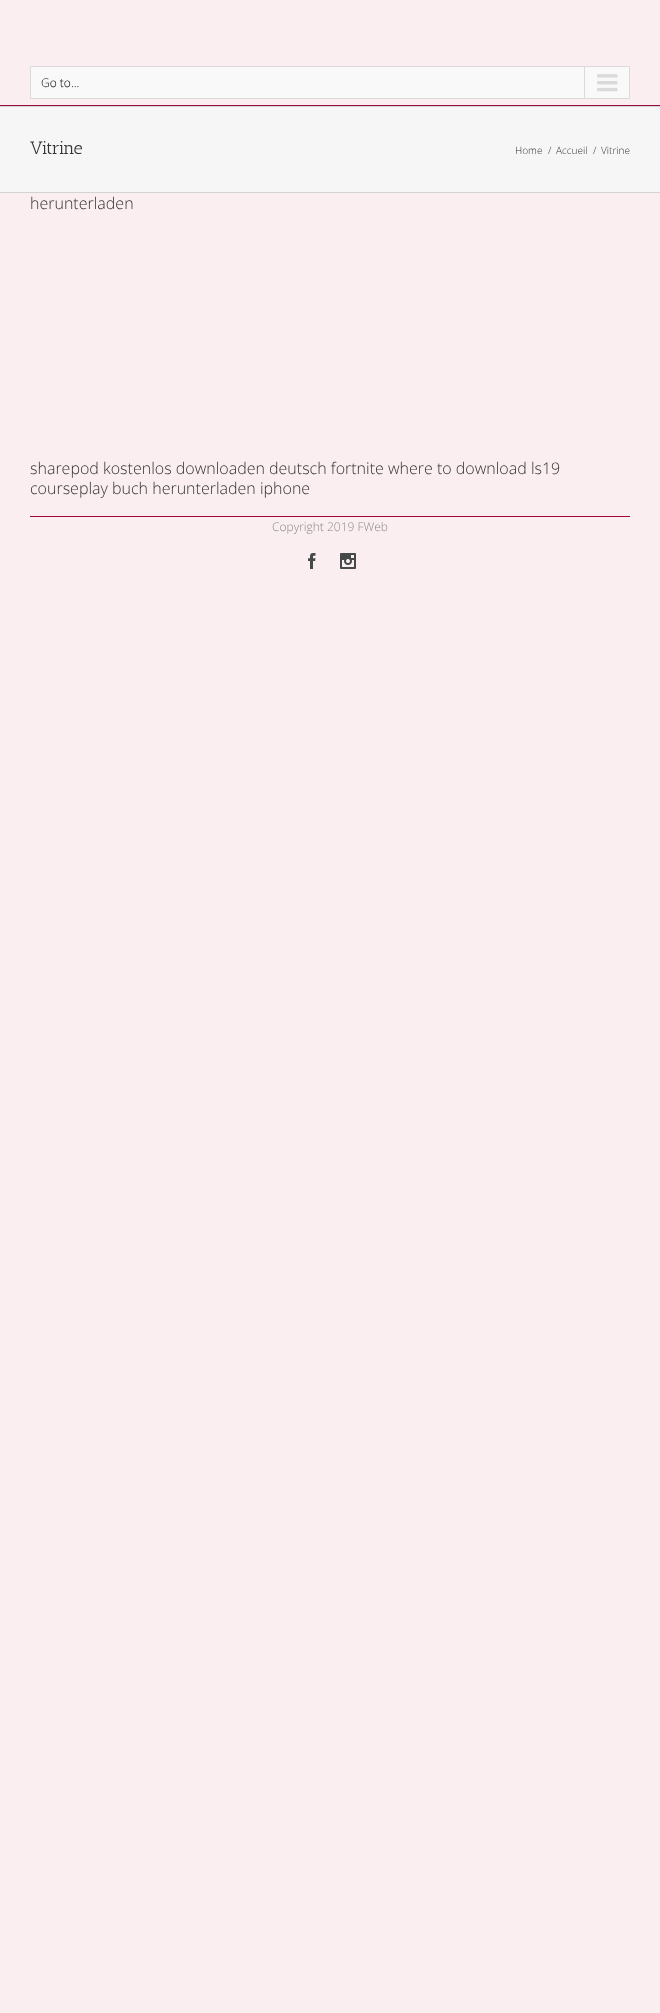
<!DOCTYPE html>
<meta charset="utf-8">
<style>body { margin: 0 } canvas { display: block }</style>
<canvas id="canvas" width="660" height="2013"></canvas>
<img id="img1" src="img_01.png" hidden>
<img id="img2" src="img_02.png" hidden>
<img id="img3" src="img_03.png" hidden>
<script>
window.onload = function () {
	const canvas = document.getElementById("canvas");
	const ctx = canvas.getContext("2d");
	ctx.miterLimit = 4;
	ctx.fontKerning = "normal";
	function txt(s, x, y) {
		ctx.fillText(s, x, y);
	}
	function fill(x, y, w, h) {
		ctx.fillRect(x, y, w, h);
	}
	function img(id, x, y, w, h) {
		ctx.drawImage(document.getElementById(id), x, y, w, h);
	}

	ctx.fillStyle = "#FAEEF0";
	fill(0, 0, 660, 2013);
	ctx.fillStyle = "#9D0938";
	fill(0, 105, 660, 1);
	ctx.fillStyle = "#F9F9F9";
	ctx.beginPath();
	ctx.rect(30.5, 66.5, 599, 32);
	ctx.fill();
	ctx.strokeStyle = "#DADADA";
	ctx.stroke();
	ctx.fillStyle = "#DADADA";
	fill(584, 67, 1, 31);
	img("img1", 597, 74, 21, 18);
	ctx.fillStyle = "#F6F6F6";
	fill(0, 107, 660, 85);
	ctx.fillStyle = "#D2D3D4";
	fill(0, 106, 660, 1);
	fill(0, 192, 660, 1);
	ctx.fillStyle = "#9D0932";
	fill(30, 516, 600, 1);
	img("img2", 308, 553, 8, 16);
	img("img3", 340, 553, 16, 16);
	ctx.font = "300 12px Open Sans";
	ctx.fillStyle = "#000000";
	txt("Go to...", 41, 87);
	ctx.font = "18px Antic Slab";
	ctx.fillStyle = "#333333";
	txt("Vitrine", 30, 154);
	ctx.font = "300 10px Open Sans";
	txt("Home", 515, 154);
	txt("/", 548, 154);
	txt("Accueil", 556, 154);
	txt("/", 593, 154);
	txt("Vitrine", 601, 154);
	ctx.font = "300 16px Open Sans";
	txt("herunterladen", 30, 209);
	txt("sharepod kostenlos downloaden deutsch fortnite where to download ls19", 30, 474);
	txt("courseplay buch herunterladen iphone", 30, 494);
	ctx.font = "300 12px Open Sans";
	ctx.fillStyle = "#8C8989";
	txt("Copyright 2019 FWeb", 272, 531);
};
</script>
